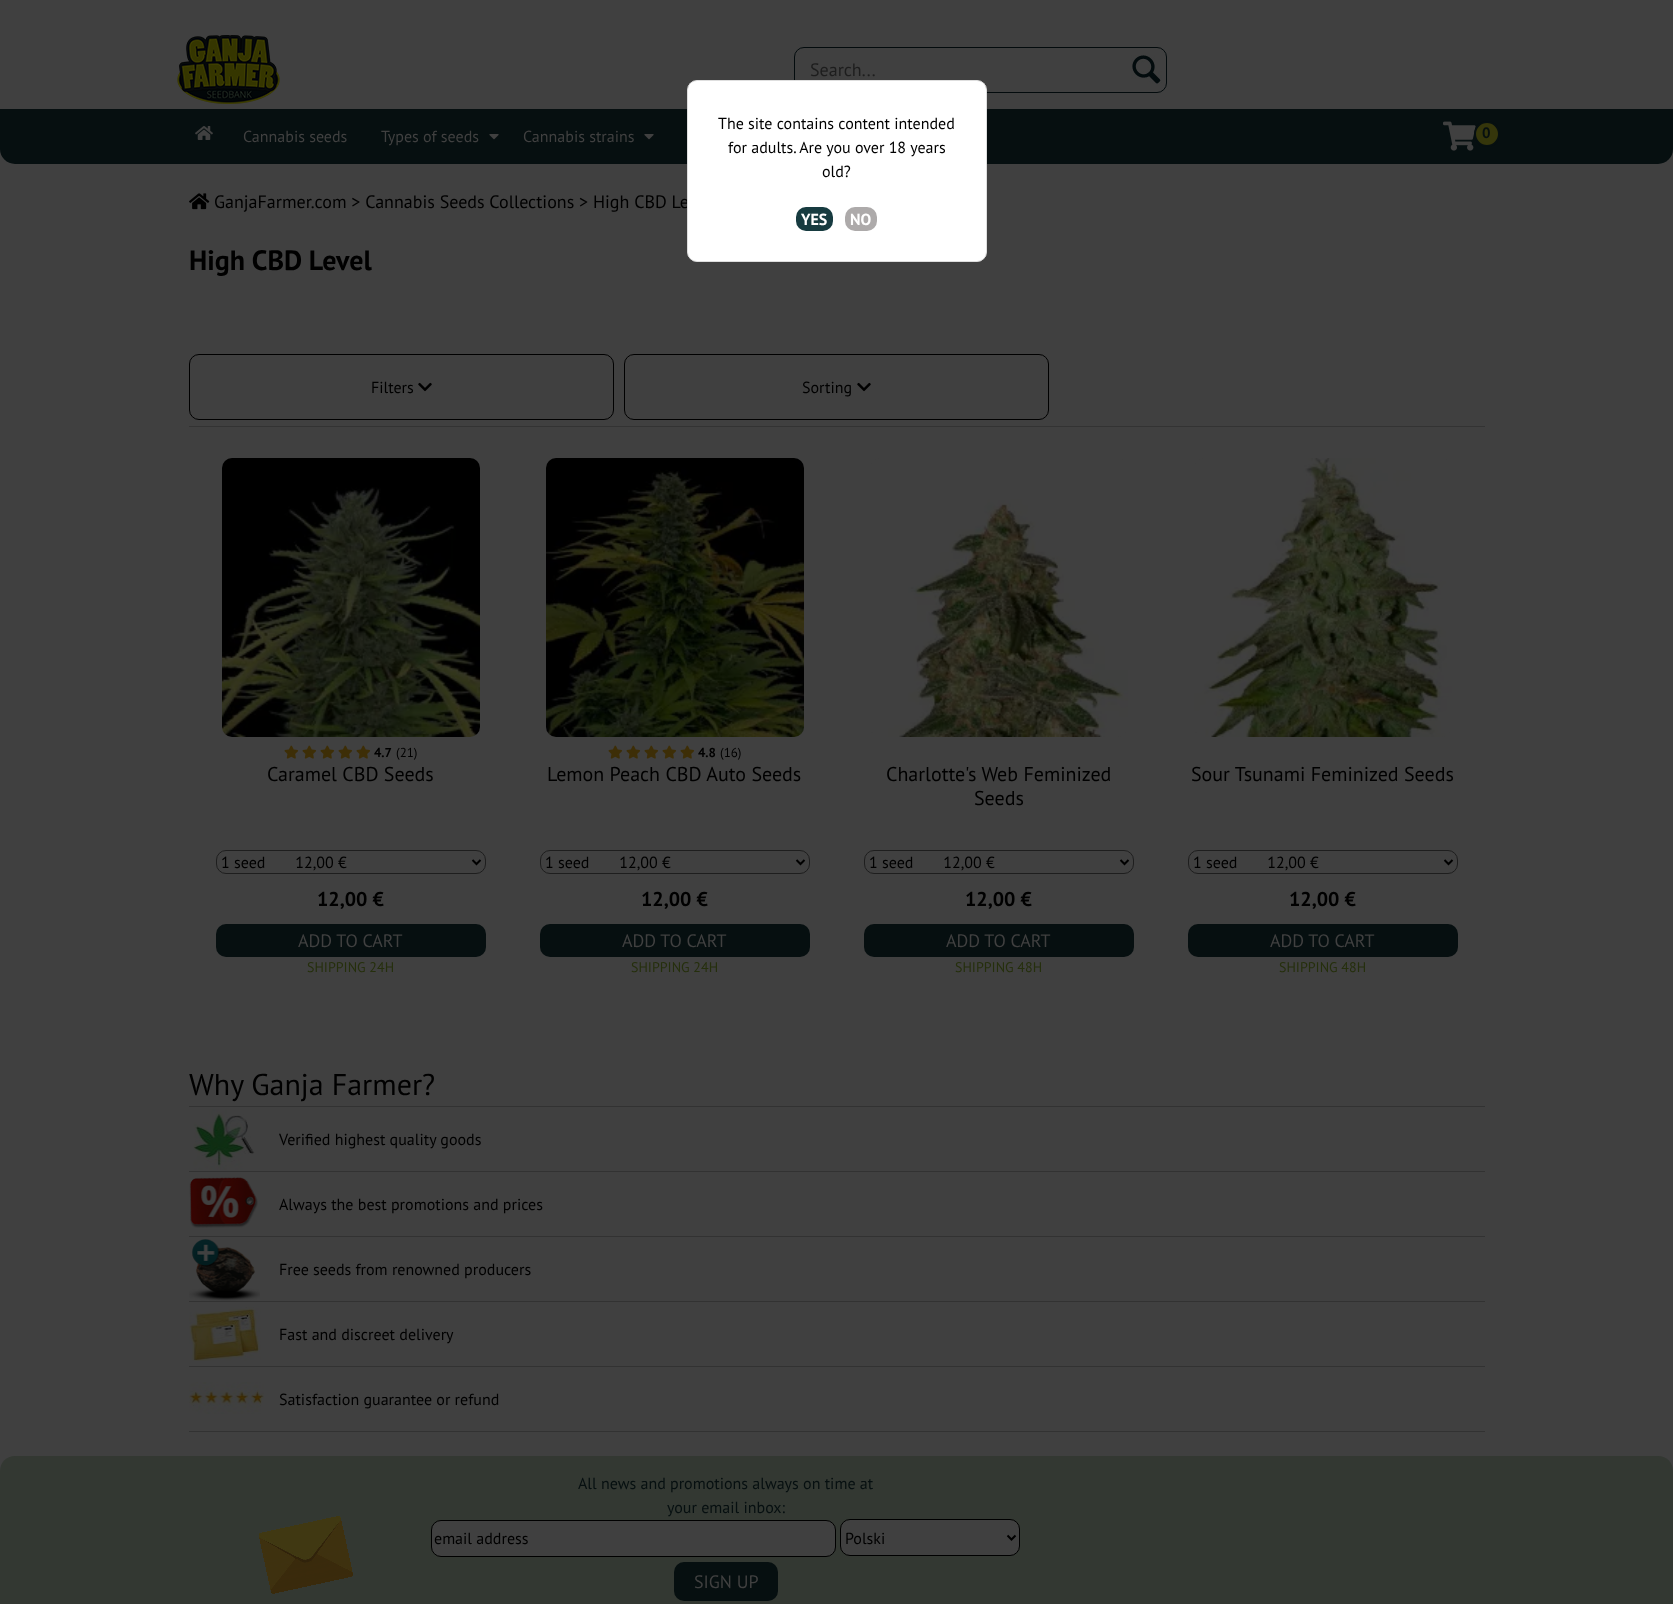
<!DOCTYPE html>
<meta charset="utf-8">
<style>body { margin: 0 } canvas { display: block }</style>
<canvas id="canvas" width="1673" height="1604"></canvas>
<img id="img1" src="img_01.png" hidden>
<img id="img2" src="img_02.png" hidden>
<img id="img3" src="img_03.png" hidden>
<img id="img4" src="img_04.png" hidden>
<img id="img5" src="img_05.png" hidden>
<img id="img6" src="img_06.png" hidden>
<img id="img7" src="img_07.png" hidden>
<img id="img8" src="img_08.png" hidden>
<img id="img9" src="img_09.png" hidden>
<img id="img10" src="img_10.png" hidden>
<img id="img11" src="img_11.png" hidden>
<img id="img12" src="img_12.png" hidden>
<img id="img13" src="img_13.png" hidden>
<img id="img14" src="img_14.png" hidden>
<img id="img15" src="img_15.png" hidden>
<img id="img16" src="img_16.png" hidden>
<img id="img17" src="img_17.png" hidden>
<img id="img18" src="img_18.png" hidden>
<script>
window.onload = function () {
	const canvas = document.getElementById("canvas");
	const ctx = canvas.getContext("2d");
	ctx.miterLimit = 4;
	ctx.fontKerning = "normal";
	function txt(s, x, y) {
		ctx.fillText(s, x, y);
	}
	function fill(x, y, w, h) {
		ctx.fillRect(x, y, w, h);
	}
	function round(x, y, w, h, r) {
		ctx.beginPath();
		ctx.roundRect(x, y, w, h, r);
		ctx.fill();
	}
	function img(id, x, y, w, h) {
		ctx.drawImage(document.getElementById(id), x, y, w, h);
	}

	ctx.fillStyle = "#404040";
	fill(0, 0, 1673, 1604);
	img("img1", 177, 35, 103, 69);
	ctx.beginPath();
	ctx.roundRect(794.5, 47.5, 372, 45, 9.5);
	ctx.strokeStyle = "#030B0D";
	ctx.stroke();
	img("img2", 1131, 55, 31, 29);
	ctx.fillStyle = "#060F10";
	ctx.beginPath();
	ctx.roundRect(0, 109, 1673, 55, [0, 0, 15, 15]);
	ctx.fill();
	img("img3", 195, 126, 18, 14);
	img("img4", 489, 134, 10, 6);
	img("img4", 644, 134, 10, 6);
	img("img5", 1443, 121, 33, 30);
	ctx.fillStyle = "#35360B";
	ctx.beginPath();
	ctx.arc(1487, 134, 12, 0, Math.PI * 2);
	ctx.fill();
	ctx.strokeStyle = "#060F10";
	ctx.lineWidth = 2;
	ctx.stroke();
	img("img6", 189, 193, 21, 17);
	ctx.beginPath();
	ctx.roundRect(189.5, 354.5, 424, 65, 9.5);
	ctx.strokeStyle = "#000000";
	ctx.lineWidth = 1;
	ctx.stroke();
	img("img7", 418, 382, 14, 10);
	ctx.beginPath();
	ctx.roundRect(624.5, 354.5, 424, 65, 9.5);
	ctx.stroke();
	img("img7", 857, 382, 14, 10);
	ctx.fillStyle = "#333333";
	fill(189, 426, 1296, 1);
	img("img8", 222, 458, 258, 279);
	img("img9", 284, 745, 15, 14);
	img("img9", 302, 745, 15, 14);
	img("img9", 320, 745, 15, 14);
	img("img9", 338, 745, 15, 14);
	img("img9", 356, 745, 15, 14);
	ctx.beginPath();
	ctx.roundRect(216.5, 850.5, 269, 23, 9.5);
	ctx.strokeStyle = "#1E1E1E";
	ctx.stroke();
	ctx.beginPath();
	ctx.moveTo(472.5, 860);
	ctx.lineTo(476.5, 864);
	ctx.lineTo(480.5, 860);
	ctx.strokeStyle = "#000000";
	ctx.lineWidth = 2;
	ctx.stroke();
	ctx.fillStyle = "#060F10";
	round(216, 924, 270, 33, 10);
	img("img10", 546, 458, 258, 279);
	img("img9", 608, 745, 15, 14);
	img("img9", 626, 745, 15, 14);
	img("img9", 644, 745, 15, 14);
	img("img9", 662, 745, 15, 14);
	img("img9", 680, 745, 15, 14);
	ctx.beginPath();
	ctx.roundRect(540.5, 850.5, 269, 23, 9.5);
	ctx.strokeStyle = "#1E1E1E";
	ctx.lineWidth = 1;
	ctx.stroke();
	ctx.beginPath();
	ctx.moveTo(796.5, 860);
	ctx.lineTo(800.5, 864);
	ctx.lineTo(804.5, 860);
	ctx.strokeStyle = "#000000";
	ctx.lineWidth = 2;
	ctx.stroke();
	round(540, 924, 270, 33, 10);
	img("img11", 870, 458, 258, 279);
	ctx.beginPath();
	ctx.roundRect(864.5, 850.5, 269, 23, 9.5);
	ctx.strokeStyle = "#1E1E1E";
	ctx.lineWidth = 1;
	ctx.stroke();
	ctx.beginPath();
	ctx.moveTo(1120.5, 860);
	ctx.lineTo(1124.5, 864);
	ctx.lineTo(1128.5, 860);
	ctx.strokeStyle = "#000000";
	ctx.lineWidth = 2;
	ctx.stroke();
	round(864, 924, 270, 33, 10);
	img("img12", 1194, 458, 258, 279);
	ctx.beginPath();
	ctx.roundRect(1188.5, 850.5, 269, 23, 9.5);
	ctx.strokeStyle = "#1E1E1E";
	ctx.lineWidth = 1;
	ctx.stroke();
	ctx.beginPath();
	ctx.moveTo(1444.5, 860);
	ctx.lineTo(1448.5, 864);
	ctx.lineTo(1452.5, 860);
	ctx.strokeStyle = "#000000";
	ctx.lineWidth = 2;
	ctx.stroke();
	round(1188, 924, 270, 33, 10);
	img("img13", 193, 1109, 62, 61);
	ctx.fillStyle = "#323232";
	fill(189, 1106, 1296, 1);
	img("img14", 189, 1177, 69, 51);
	fill(189, 1171, 1296, 1);
	img("img15", 189, 1239, 71, 62);
	fill(189, 1236, 1296, 1);
	img("img16", 189, 1307, 72, 54);
	fill(189, 1301, 1296, 1);
	img("img17", 189, 1382, 75, 32);
	fill(189, 1366, 1296, 1);
	fill(189, 1431, 1296, 1);
	ctx.fillStyle = "#333832";
	ctx.beginPath();
	ctx.moveTo(15, 1456);
	ctx.lineTo(1658, 1456);
	ctx.bezierCurveTo(1666.5, 1456, 1673, 1462.5, 1673, 1471);
	ctx.lineTo(1673, 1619);
	ctx.lineTo(0, 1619);
	ctx.lineTo(0, 1471);
	ctx.bezierCurveTo(0, 1462.5, 6.5, 1456, 15, 1456);
	ctx.closePath();
	ctx.fill();
	img("img18", 259, 1516, 94, 78);
	ctx.fillStyle = "#404040";
	ctx.beginPath();
	ctx.roundRect(431.5, 1520.5, 404, 36, 9.5);
	ctx.fill();
	ctx.lineWidth = 1;
	ctx.stroke();
	ctx.beginPath();
	ctx.roundRect(840.5, 1519.5, 179, 36, 9.5);
	ctx.fill();
	ctx.stroke();
	ctx.beginPath();
	ctx.moveTo(1007.5, 1535.5);
	ctx.lineTo(1011.5, 1539.5);
	ctx.lineTo(1015.5, 1535.5);
	ctx.lineWidth = 2;
	ctx.stroke();
	ctx.fillStyle = "#060F10";
	round(674, 1562, 104, 39, 10);
	ctx.font = "18px PT Sans";
	ctx.fillStyle = "#1D1D1D";
	txt("Search...", 810, 76);
	ctx.font = "16px PT Sans";
	ctx.fillStyle = "#404040";
	txt("Cannabis seeds", 243, 142);
	txt("Types of seeds", 381, 142);
	txt("Cannabis strains", 523, 142);
	ctx.font = "bold 15px PT Sans";
	ctx.fillStyle = "#060F10";
	txt("0", 1482, 138);
	ctx.font = "18px PT Sans";
	ctx.fillStyle = "#000000";
	txt("GanjaFarmer.com > Cannabis Seeds Collections > High CBD Le", 214, 208);
	ctx.fillStyle = "#FFFFFF";
	ctx.beginPath();
	ctx.roundRect(687.5, 80.5, 299, 181, 9.5);
	ctx.fill();
	ctx.strokeStyle = "#DEDEDE";
	ctx.lineWidth = 1;
	ctx.stroke();
	ctx.fillStyle = "#ADAAAA";
	round(845, 207, 32, 24, 10);
	ctx.font = "bold 16px PT Sans";
	ctx.fillStyle = "#FFFFFF";
	txt("NO", 850, 225);
	ctx.fillStyle = "#173B40";
	round(796, 207, 37, 24, 10);
	ctx.fillStyle = "#FFFFFF";
	txt("YES", 801, 225);
	ctx.font = "16px PT Sans";
	ctx.fillStyle = "#000000";
	txt("old?", 822, 177);
	txt("for adults. Are you over 18 years", 728, 153);
	txt("The site contains content intended", 718, 129);
	ctx.font = "bold 28px PT Sans";
	txt("High CBD Level", 189, 270);
	ctx.font = "16px PT Sans";
	txt("Filters", 371, 393);
	txt("Sorting", 802, 393);
	ctx.font = "bold 13px PT Sans";
	txt("4.7", 374, 757);
	ctx.font = "13px PT Sans";
	txt("(21)", 396, 757);
	ctx.font = "20px PT Sans";
	txt("Caramel CBD Seeds", 267, 781);
	ctx.font = "16px PT Sans";
	txt("1 seed       12,00 €", 221, 868);
	ctx.font = "bold 20px PT Sans";
	txt("12,00 €", 317, 906);
	ctx.font = "18px PT Sans";
	ctx.fillStyle = "#404040";
	txt("ADD TO CART", 298, 947);
	ctx.font = "14px PT Sans";
	ctx.fillStyle = "#252F0C";
	txt("SHIPPING 24H", 307, 972);
	ctx.font = "bold 13px PT Sans";
	ctx.fillStyle = "#000000";
	txt("4.8", 698, 757);
	ctx.font = "13px PT Sans";
	txt("(16)", 720, 757);
	ctx.font = "20px PT Sans";
	txt("Lemon Peach CBD Auto Seeds", 547, 781);
	ctx.font = "16px PT Sans";
	txt("1 seed       12,00 €", 545, 868);
	ctx.font = "bold 20px PT Sans";
	txt("12,00 €", 641, 906);
	ctx.font = "18px PT Sans";
	ctx.fillStyle = "#404040";
	txt("ADD TO CART", 622, 947);
	ctx.font = "14px PT Sans";
	ctx.fillStyle = "#252F0C";
	txt("SHIPPING 24H", 631, 972);
	ctx.font = "20px PT Sans";
	ctx.fillStyle = "#000000";
	txt("Charlotte's Web Feminized", 886, 781);
	txt("Seeds", 974, 805);
	ctx.font = "16px PT Sans";
	txt("1 seed       12,00 €", 869, 868);
	ctx.font = "bold 20px PT Sans";
	txt("12,00 €", 965, 906);
	ctx.font = "18px PT Sans";
	ctx.fillStyle = "#404040";
	txt("ADD TO CART", 946, 947);
	ctx.font = "14px PT Sans";
	ctx.fillStyle = "#252F0C";
	txt("SHIPPING 48H", 955, 972);
	ctx.font = "20px PT Sans";
	ctx.fillStyle = "#000000";
	txt("Sour Tsunami Feminized Seeds", 1191, 781);
	ctx.font = "16px PT Sans";
	txt("1 seed       12,00 €", 1193, 868);
	ctx.font = "bold 20px PT Sans";
	txt("12,00 €", 1289, 906);
	ctx.font = "18px PT Sans";
	ctx.fillStyle = "#404040";
	txt("ADD TO CART", 1270, 947);
	ctx.font = "14px PT Sans";
	ctx.fillStyle = "#252F0C";
	txt("SHIPPING 48H", 1279, 972);
	ctx.font = "30px PT Sans";
	ctx.fillStyle = "#000000";
	txt("Why Ganja Farmer?", 189, 1095);
	ctx.font = "16px PT Sans";
	txt("Verified highest quality goods", 279, 1145);
	txt("Always the best promotions and prices", 279, 1210);
	txt("Free seeds from renowned producers", 279, 1275);
	txt("Fast and discreet delivery", 279, 1340);
	txt("Satisfaction guarantee or refund", 279, 1405);
	ctx.fillStyle = "#060F10";
	txt("All news and promotions always on time at", 578, 1489);
	txt("your email inbox:", 667, 1513);
	ctx.fillStyle = "#000000";
	txt("email address", 434, 1544);
	txt("Polski", 845, 1544);
	ctx.font = "18px PT Sans";
	ctx.fillStyle = "#404040";
	txt("SIGN UP", 694, 1588);
};
</script>
